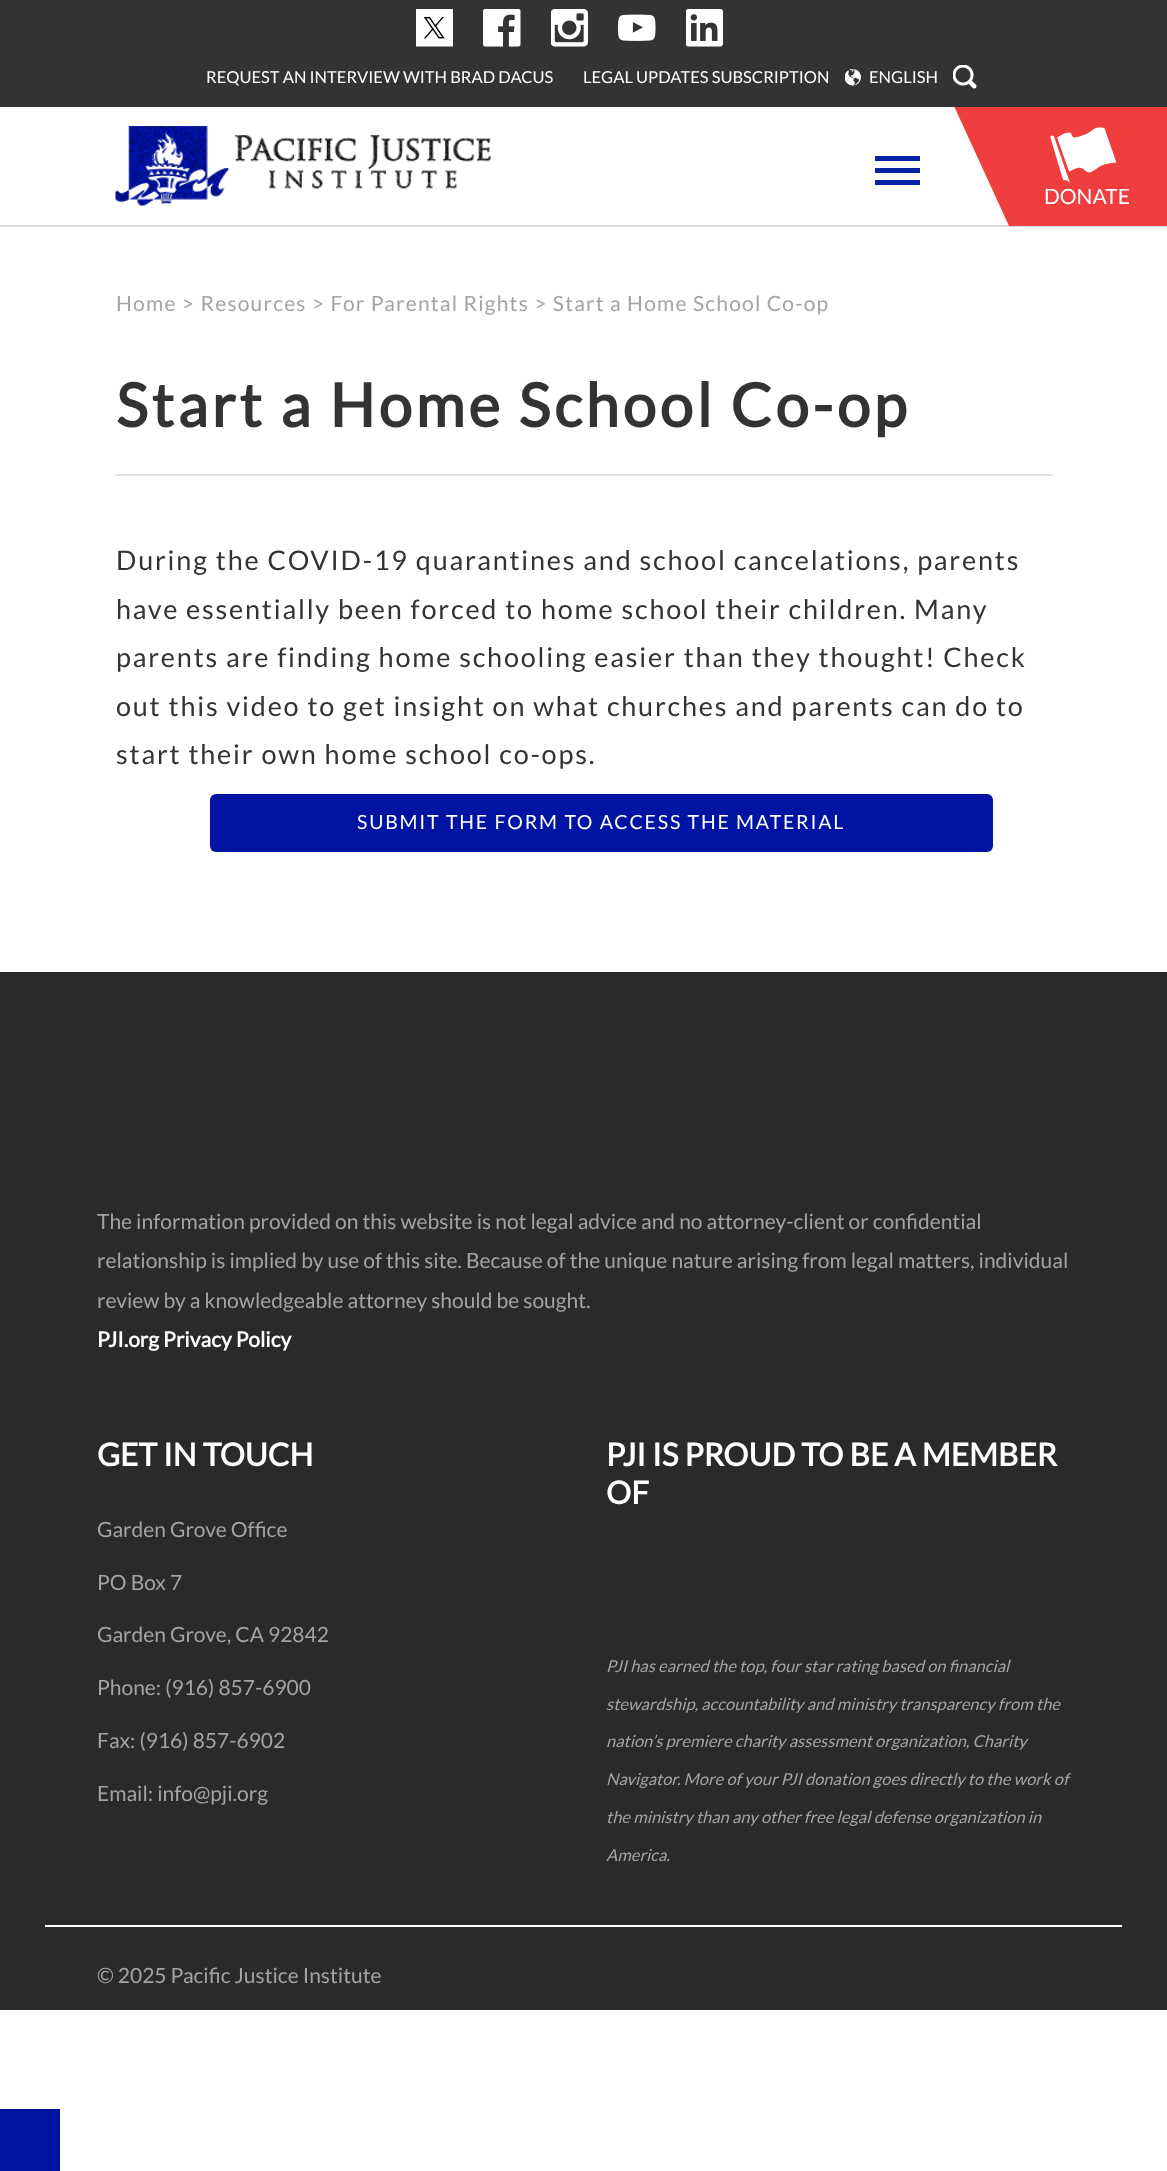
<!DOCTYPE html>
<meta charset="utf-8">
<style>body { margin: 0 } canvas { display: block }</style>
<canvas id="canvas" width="1167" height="2171"></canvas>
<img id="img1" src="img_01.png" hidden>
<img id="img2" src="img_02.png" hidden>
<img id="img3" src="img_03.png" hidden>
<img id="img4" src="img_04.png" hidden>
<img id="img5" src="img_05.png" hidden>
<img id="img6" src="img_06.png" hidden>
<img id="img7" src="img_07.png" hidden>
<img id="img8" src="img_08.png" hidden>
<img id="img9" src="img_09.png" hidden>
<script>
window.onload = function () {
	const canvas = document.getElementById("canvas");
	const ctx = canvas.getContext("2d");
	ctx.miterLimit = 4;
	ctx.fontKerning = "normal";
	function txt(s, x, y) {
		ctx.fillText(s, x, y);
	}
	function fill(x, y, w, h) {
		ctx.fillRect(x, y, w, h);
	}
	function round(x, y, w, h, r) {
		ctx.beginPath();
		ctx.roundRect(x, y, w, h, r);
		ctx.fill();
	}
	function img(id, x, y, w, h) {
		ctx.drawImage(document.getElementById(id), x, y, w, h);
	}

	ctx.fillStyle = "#FFFFFF";
	fill(0, 0, 1167, 2171);
	ctx.fillStyle = "#333333";
	fill(0, 0, 1167, 107);
	img("img1", 416, 9, 37, 38);
	img("img2", 483, 9, 38, 38);
	img("img3", 551, 9, 37, 38);
	img("img4", 618, 14, 38, 27);
	img("img5", 686, 9, 37, 38);
	img("img6", 845, 69, 16, 17);
	img("img7", 953, 65, 24, 24);
	ctx.fillStyle = "#DDDDDD";
	fill(0, 225, 1167, 2);
	img("img8", 115, 126, 376, 80);
	ctx.fillStyle = "#0323A3";
	fill(875, 156, 45, 5);
	fill(875, 168, 45, 5);
	fill(875, 180, 45, 5);
	ctx.save();
	ctx.beginPath();
	ctx.rect(954, 107, 213, 120);
	ctx.clip();
	ctx.fillStyle = "#F03D3D";
	ctx.beginPath();
	ctx.moveTo(1167, 106);
	ctx.lineTo(954, 106);
	ctx.lineTo(1009, 226);
	ctx.lineTo(1167, 226);
	ctx.closePath();
	ctx.fill();
	ctx.restore();
	img("img9", 1050, 127, 67, 57);
	ctx.fillStyle = "#DAE0EA";
	fill(116, 474, 936, 2);
	ctx.fillStyle = "#0014A3";
	round(210, 794, 783, 58, 6);
	fill(0, 2109, 60, 62);
	ctx.fillStyle = "#282A2B";
	fill(0, 972, 1167, 1038);
	ctx.fillStyle = "#FFFFFF";
	fill(45, 1925, 1077, 2);
	ctx.font = "16.5px Lato";
	txt("REQUEST AN INTERVIEW WITH BRAD DACUS", 206, 83);
	txt("LEGAL UPDATES SUBSCRIPTION", 583, 83);
	txt("ENGLISH", 869, 83);
	ctx.font = "21px Lato";
	txt("DONATE", 1044, 204);
	ctx.letterSpacing = "1.2px";
	ctx.fillStyle = "#A4A4A4";
	txt("Home > Resources > For Parental Rights > Start a Home School Co-op", 116, 311);
	ctx.letterSpacing = "3.6px";
	ctx.font = "bold 60px Lato";
	ctx.fillStyle = "#333333";
	txt("Start a Home School Co-op", 116, 427);
	ctx.letterSpacing = "1.8px";
	ctx.font = "27px Lato";
	txt("During the COVID-19 quarantines and school cancelations, parents", 116, 570);
	txt("have essentially been forced to home school their children. Many", 116, 619);
	txt("parents are finding home schooling easier than they thought! Check", 116, 667);
	txt("out this video to get insight on what churches and parents can do to", 116, 716);
	txt("start their own home school co-ops.", 116, 764);
	ctx.font = "19.5px Lato";
	ctx.fillStyle = "#FFFFFF";
	txt("SUBMIT THE FORM TO ACCESS THE MATERIAL", 357, 829);
	ctx.letterSpacing = "0px";
	ctx.font = "21px Lato";
	ctx.fillStyle = "#A4A4A4";
	txt("The information provided on this website is not legal advice and no attorney-client or confidential", 97, 1229);
	txt("relationship is implied by use of this site. Because of the unique nature arising from legal matters, individual", 97, 1268);
	txt("review by a knowledgeable attorney should be sought.", 97, 1308);
	ctx.font = "bold 21px Lato";
	ctx.fillStyle = "#FFFFFF";
	txt("PJI.org Privacy Policy", 97, 1347);
	ctx.font = "bold 31.5px Lato";
	txt("GET IN TOUCH", 97, 1466);
	ctx.font = "21px Lato";
	ctx.fillStyle = "#A4A4A4";
	txt("Garden Grove Office", 97, 1537);
	txt("PO Box 7", 97, 1590);
	txt("Garden Grove, CA 92842", 97, 1642);
	txt("Phone: (916) 857-6900", 97, 1695);
	txt("Fax: (916) 857-6902", 97, 1748);
	txt("Email: info@pji.org", 97, 1801);
	ctx.font = "bold 31.5px Lato";
	ctx.fillStyle = "#FFFFFF";
	txt("PJI IS PROUD TO BE A MEMBER", 606, 1466);
	txt("OF", 606, 1504);
	ctx.font = "italic 16.5px Lato";
	ctx.fillStyle = "#A4A4A4";
	txt("PJI has earned the top, four star rating based on financial", 606, 1672);
	txt("stewardship, accountability and ministry transparency from the", 606, 1710);
	txt("nation’s premiere charity assessment organization, Charity", 606, 1747);
	txt("Navigator. More of your PJI donation goes directly to the work of", 606, 1785);
	txt("the ministry than any other free legal defense organization in", 606, 1823);
	txt("America.", 606, 1861);
	ctx.font = "21px Lato";
	txt("© 2025 Pacific Justice Institute", 97, 1983);
};
</script>
